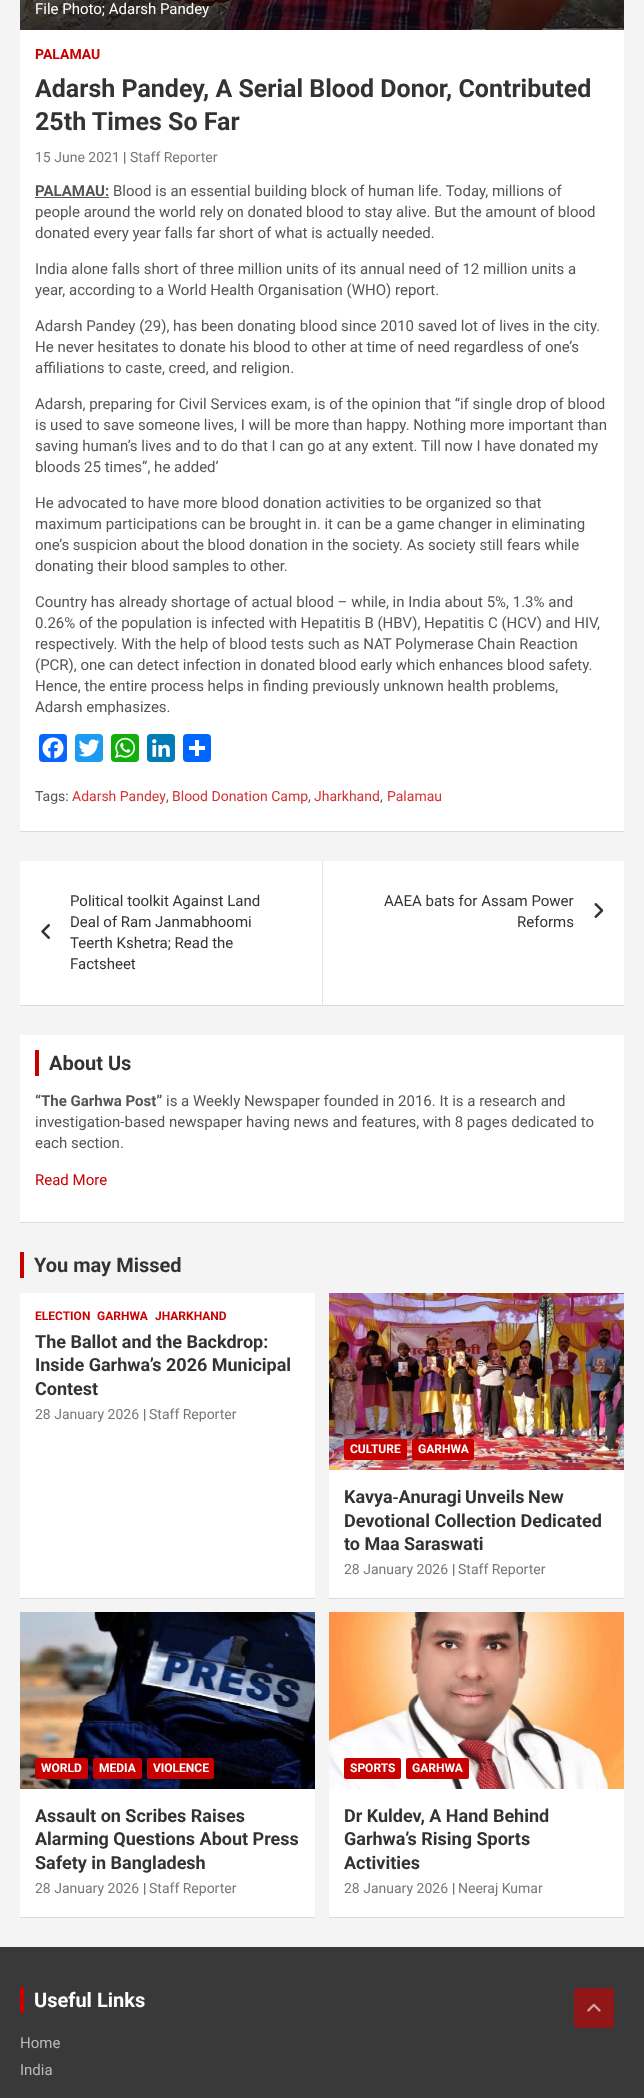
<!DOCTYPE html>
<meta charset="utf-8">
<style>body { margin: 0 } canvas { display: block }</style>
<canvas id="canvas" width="644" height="2098"></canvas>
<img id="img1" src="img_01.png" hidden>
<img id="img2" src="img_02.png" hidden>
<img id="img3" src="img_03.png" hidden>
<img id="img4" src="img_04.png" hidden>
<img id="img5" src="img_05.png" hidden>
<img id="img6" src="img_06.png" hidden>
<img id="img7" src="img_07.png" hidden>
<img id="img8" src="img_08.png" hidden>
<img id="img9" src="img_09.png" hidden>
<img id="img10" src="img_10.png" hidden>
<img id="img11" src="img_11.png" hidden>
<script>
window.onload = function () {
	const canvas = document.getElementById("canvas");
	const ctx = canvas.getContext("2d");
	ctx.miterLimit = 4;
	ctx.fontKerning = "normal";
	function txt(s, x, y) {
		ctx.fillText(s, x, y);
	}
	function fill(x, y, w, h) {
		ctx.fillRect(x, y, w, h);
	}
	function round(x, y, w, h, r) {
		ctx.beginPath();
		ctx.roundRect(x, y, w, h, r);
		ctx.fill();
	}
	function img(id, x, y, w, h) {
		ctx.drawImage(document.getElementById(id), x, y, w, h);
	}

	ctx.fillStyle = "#F4F4F4";
	fill(0, 0, 644, 2098);
	ctx.fillStyle = "rgba(0, 0, 0, 0.1)";
	ctx.filter = "blur(0.5px)";
	ctx.beginPath();
	ctx.rect(20, -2, 604, 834);
	ctx.fill();
	ctx.filter = "none";
	ctx.fillStyle = "#FFFFFF";
	fill(20, 30, 604, 801);
	img("img1", 20, 0, 604, 30);
	ctx.fillStyle = "#555555";
	fill(35, 197, 74, 1);
	ctx.fillStyle = "#0866FF";
	round(39, 734, 28, 28, 4);
	img("img2", 42, 737, 22, 22);
	ctx.fillStyle = "#1D9BF0";
	round(75, 734, 28, 28, 4);
	img("img3", 78, 739, 22, 18);
	ctx.fillStyle = "#12AF0A";
	round(111, 734, 28, 28, 4);
	img("img4", 115, 737, 21, 22);
	ctx.fillStyle = "#007BB5";
	round(147, 734, 28, 28, 4);
	img("img5", 152, 739, 18, 18);
	ctx.fillStyle = "#0166FF";
	round(183, 734, 28, 28, 4);
	ctx.fillStyle = "#FFFFFF";
	fill(195, 740, 4, 16);
	fill(189, 746, 16, 4);
	ctx.fillStyle = "rgba(0, 0, 0, 0.1)";
	ctx.filter = "blur(0.5px)";
	ctx.beginPath();
	ctx.rect(20, 862, 604, 144);
	ctx.fill();
	ctx.filter = "none";
	ctx.fillStyle = "#FFFFFF";
	fill(20, 861, 604, 144);
	img("img6", 41, 924, 9, 15);
	ctx.fillStyle = "#E6E6E6";
	fill(322, 861, 1, 144);
	img("img7", 594, 903, 10, 15);
	ctx.fillStyle = "rgba(0, 0, 0, 0.1)";
	ctx.filter = "blur(0.5px)";
	ctx.beginPath();
	ctx.rect(20, 1036, 604, 187);
	ctx.fill();
	ctx.filter = "none";
	ctx.fillStyle = "#FFFFFF";
	fill(20, 1035, 604, 187);
	ctx.fillStyle = "#C80000";
	fill(35, 1050, 4, 26);
	fill(20, 1252, 4, 26);
	ctx.fillStyle = "rgba(0, 0, 0, 0.1)";
	ctx.filter = "blur(0.5px)";
	ctx.beginPath();
	ctx.rect(20, 1294, 295, 305);
	ctx.fill();
	ctx.filter = "none";
	ctx.fillStyle = "#FFFFFF";
	fill(20, 1293, 295, 305);
	ctx.fillStyle = "rgba(0, 0, 0, 0.1)";
	ctx.filter = "blur(0.5px)";
	ctx.beginPath();
	ctx.rect(329, 1294, 295, 305);
	ctx.fill();
	ctx.filter = "none";
	ctx.fillStyle = "#FFFFFF";
	fill(329, 1470, 295, 128);
	img("img8", 329, 1293, 295, 177);
	ctx.fillStyle = "#C80000";
	round(344, 1439, 63, 21, 2);
	round(412, 1439, 62, 21, 2);
	ctx.fillStyle = "rgba(0, 0, 0, 0.1)";
	ctx.filter = "blur(0.5px)";
	ctx.beginPath();
	ctx.rect(20, 1613, 295, 305);
	ctx.fill();
	ctx.filter = "none";
	ctx.fillStyle = "#FFFFFF";
	fill(20, 1789, 295, 128);
	img("img9", 20, 1612, 295, 177);
	ctx.fillStyle = "#C80000";
	round(35, 1758, 53, 21, 2);
	round(93, 1758, 49, 21, 2);
	round(147, 1758, 67, 21, 2);
	ctx.fillStyle = "rgba(0, 0, 0, 0.1)";
	ctx.filter = "blur(0.5px)";
	ctx.beginPath();
	ctx.rect(329, 1613, 295, 305);
	ctx.fill();
	ctx.filter = "none";
	ctx.fillStyle = "#FFFFFF";
	fill(329, 1789, 295, 128);
	img("img10", 329, 1612, 295, 177);
	ctx.fillStyle = "#C80000";
	round(344, 1758, 57, 21, 2);
	round(406, 1758, 63, 21, 2);
	ctx.fillStyle = "#393939";
	fill(0, 1947, 644, 151);
	ctx.fillStyle = "#C80000";
	fill(20, 1987, 4, 26);
	ctx.fillStyle = "#8F1717";
	round(574, 1988, 40, 40, 3);
	img("img11", 587, 2003, 14, 9);
	ctx.font = "15px Roboto";
	ctx.fillStyle = "#FFFFFF";
	txt("File Photo; Adarsh Pandey", 35, 14);
	ctx.font = "bold 14px Roboto";
	ctx.fillStyle = "#C80000";
	txt("PALAMAU", 35, 59);
	ctx.font = "bold 25px Roboto";
	ctx.fillStyle = "#333333";
	txt("Adarsh Pandey, A Serial Blood Donor, Contributed", 35, 97);
	txt("25th Times So Far", 35, 130);
	ctx.font = "14px Roboto";
	ctx.fillStyle = "#777777";
	txt("15 June 2021", 35, 162);
	ctx.fillStyle = "#555555";
	txt("|", 123, 162);
	ctx.fillStyle = "#777777";
	txt("Staff Reporter", 130, 162);
	ctx.font = "bold 15px Roboto";
	ctx.fillStyle = "#555555";
	txt("PALAMAU:", 35, 196);
	ctx.font = "15px Roboto";
	txt("Blood is an essential building block of human life. Today, millions of", 113, 196);
	txt("people around the world rely on donated blood to stay alive. But the amount of blood", 35, 217);
	txt("donated every year falls far short of what is actually needed.", 35, 238);
	txt("India alone falls short of three million units of its annual need of 12 million units a", 35, 274);
	txt("year, according to a World Health Organisation (WHO) report.", 35, 295);
	txt("Adarsh Pandey (29), has been donating blood since 2010 saved lot of lives in the city.", 35, 331);
	txt("He never hesitates to donate his blood to other at time of need regardless of one’s", 35, 352);
	txt("affiliations to caste, creed, and religion.", 35, 373);
	txt("Adarsh, preparing for Civil Services exam, is of the opinion that “if single drop of blood", 35, 409);
	txt("is used to save someone lives, I will be more than happy. Nothing more important than", 35, 430);
	txt("saving human’s lives and to do that I can go at any extent. Till now I have donated my", 35, 451);
	txt("bloods 25 times”, he added’", 35, 472);
	txt("He advocated to have more blood donation activities to be organized so that", 35, 508);
	txt("maximum participations can be brought in. it can be a game changer in eliminating", 35, 529);
	txt("one’s suspicion about the blood donation in the society. As society still fears while", 35, 550);
	txt("donating their blood samples to other.", 35, 571);
	txt("Country has already shortage of actual blood – while, in India about 5%, 1.3% and", 35, 607);
	txt("0.26% of the population is infected with Hepatitis B (HBV), Hepatitis C (HCV) and HIV,", 35, 628);
	txt("respectively. With the help of blood tests such as NAT Polymerase Chain Reaction", 35, 649);
	txt("(PCR), one can detect infection in donated blood early which enhances blood safety.", 35, 670);
	txt("Hence, the entire process helps in finding previously unknown health problems,", 35, 691);
	txt("Adarsh emphasizes.", 35, 712);
	ctx.font = "14px Roboto";
	txt("Tags:", 35, 801);
	ctx.fillStyle = "#D33333";
	txt("Adarsh Pandey", 72, 801);
	ctx.fillStyle = "#555555";
	txt(",", 166, 801);
	ctx.fillStyle = "#D33333";
	txt("Blood Donation Camp", 172, 801);
	ctx.fillStyle = "#555555";
	txt(",", 308, 801);
	ctx.fillStyle = "#D33333";
	txt("Jharkhand", 314, 801);
	ctx.fillStyle = "#555555";
	txt(",", 380, 801);
	ctx.fillStyle = "#D33333";
	txt("Palamau", 387, 801);
	ctx.font = "15px Roboto";
	ctx.fillStyle = "#333333";
	txt("Political toolkit Against Land", 70, 906);
	txt("Deal of Ram Janmabhoomi", 70, 927);
	txt("Teerth Kshetra; Read the", 70, 948);
	txt("Factsheet", 70, 969);
	txt("AAEA bats for Assam Power", 384, 906);
	txt("Reforms", 517, 927);
	ctx.font = "bold 20px Roboto";
	txt("About Us", 49, 1070);
	ctx.font = "bold 15px Roboto";
	ctx.fillStyle = "#555555";
	txt("“The Garhwa Post”", 35, 1106);
	ctx.font = "15px Roboto";
	txt("is a Weekly Newspaper founded in 2016. It is a research and", 166, 1106);
	txt("investigation-based newspaper having news and features, with 8 pages dedicated to", 35, 1127);
	txt("each section.", 35, 1148);
	ctx.fillStyle = "#C80000";
	txt("Read More", 35, 1185);
	ctx.font = "bold 20px Roboto";
	ctx.fillStyle = "#333333";
	txt("You may Missed", 34, 1272);
	ctx.font = "bold 12px Roboto";
	ctx.fillStyle = "#C80000";
	txt("ELECTION", 35, 1320);
	txt("GARHWA", 97, 1320);
	txt("JHARKHAND", 155, 1320);
	ctx.font = "bold 18px Roboto";
	ctx.fillStyle = "#333333";
	txt("The Ballot and the Backdrop:", 35, 1348);
	txt("Inside Garhwa’s 2026 Municipal", 35, 1371);
	txt("Contest", 35, 1395);
	ctx.font = "14px Roboto";
	ctx.fillStyle = "#777777";
	txt("28 January 2026", 35, 1419);
	ctx.fillStyle = "#555555";
	txt("|", 143, 1419);
	ctx.fillStyle = "#777777";
	txt("Staff Reporter", 149, 1419);
	ctx.font = "bold 12px Roboto";
	ctx.fillStyle = "#FFFFFF";
	txt("CULTURE", 350, 1453);
	txt("GARHWA", 418, 1453);
	ctx.wordSpacing = "-1px";
	ctx.font = "bold 18px Roboto";
	ctx.fillStyle = "#333333";
	txt("Kavya‑Anuragi Unveils New", 344, 1503);
	ctx.wordSpacing = "0px";
	txt("Devotional Collection Dedicated", 344, 1527);
	txt("to Maa Saraswati", 344, 1550);
	ctx.font = "14px Roboto";
	ctx.fillStyle = "#777777";
	txt("28 January 2026", 344, 1574);
	ctx.fillStyle = "#555555";
	txt("|", 452, 1574);
	ctx.fillStyle = "#777777";
	txt("Staff Reporter", 458, 1574);
	ctx.font = "bold 12px Roboto";
	ctx.fillStyle = "#FFFFFF";
	txt("WORLD", 41, 1772);
	txt("MEDIA", 99, 1772);
	txt("VIOLENCE", 153, 1772);
	ctx.font = "bold 18px Roboto";
	ctx.fillStyle = "#333333";
	txt("Assault on Scribes Raises", 35, 1822);
	txt("Alarming Questions About Press", 35, 1845);
	txt("Safety in Bangladesh", 35, 1869);
	ctx.font = "14px Roboto";
	ctx.fillStyle = "#777777";
	txt("28 January 2026", 35, 1893);
	ctx.fillStyle = "#555555";
	txt("|", 143, 1893);
	ctx.fillStyle = "#777777";
	txt("Staff Reporter", 149, 1893);
	ctx.font = "bold 12px Roboto";
	ctx.fillStyle = "#FFFFFF";
	txt("SPORTS", 350, 1772);
	txt("GARHWA", 412, 1772);
	ctx.font = "bold 18px Roboto";
	ctx.fillStyle = "#333333";
	txt("Dr Kuldev, A Hand Behind", 344, 1822);
	txt("Garhwa’s Rising Sports", 344, 1845);
	txt("Activities", 344, 1869);
	ctx.font = "14px Roboto";
	ctx.fillStyle = "#777777";
	txt("28 January 2026", 344, 1893);
	ctx.fillStyle = "#555555";
	txt("|", 452, 1893);
	ctx.fillStyle = "#777777";
	txt("Neeraj Kumar", 458, 1893);
	ctx.font = "bold 20px Roboto";
	ctx.fillStyle = "#FFFFFF";
	txt("Useful Links", 34, 2007);
	ctx.font = "15px Roboto";
	ctx.fillStyle = "#BBBBBB";
	txt("Home", 20, 2048);
	txt("India", 20, 2075);
};
</script>
